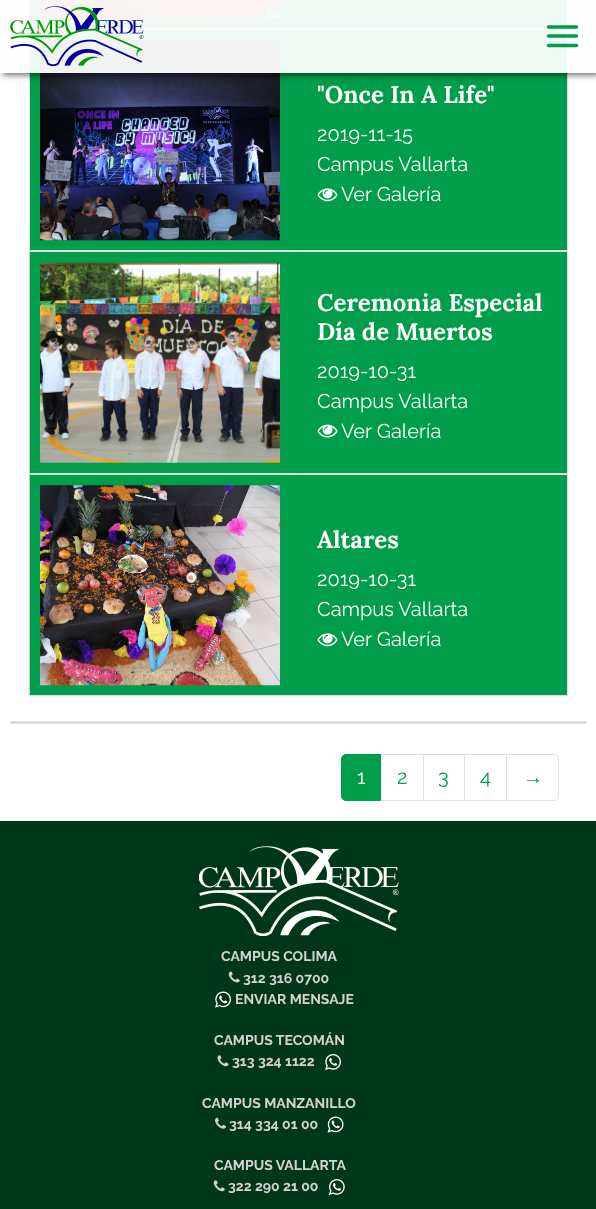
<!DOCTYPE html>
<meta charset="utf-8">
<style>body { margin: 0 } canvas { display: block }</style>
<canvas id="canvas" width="596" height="1209"></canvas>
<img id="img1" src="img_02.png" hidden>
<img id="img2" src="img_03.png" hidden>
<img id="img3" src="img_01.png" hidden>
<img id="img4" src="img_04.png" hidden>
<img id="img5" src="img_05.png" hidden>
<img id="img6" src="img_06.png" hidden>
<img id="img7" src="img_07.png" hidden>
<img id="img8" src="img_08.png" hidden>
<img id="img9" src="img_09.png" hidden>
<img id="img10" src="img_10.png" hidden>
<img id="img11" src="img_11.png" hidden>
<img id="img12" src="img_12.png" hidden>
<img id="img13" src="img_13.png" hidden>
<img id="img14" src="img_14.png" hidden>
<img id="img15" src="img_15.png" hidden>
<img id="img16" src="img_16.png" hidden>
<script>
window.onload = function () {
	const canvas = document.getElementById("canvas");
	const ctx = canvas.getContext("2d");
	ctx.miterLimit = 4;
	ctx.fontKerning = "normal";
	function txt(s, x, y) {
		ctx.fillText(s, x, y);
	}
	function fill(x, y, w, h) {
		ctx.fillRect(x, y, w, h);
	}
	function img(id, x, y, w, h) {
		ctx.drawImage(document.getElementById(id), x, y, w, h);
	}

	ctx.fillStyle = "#FFFFFF";
	fill(0, 0, 596, 1209);
	ctx.fillStyle = "#009D4B";
	ctx.beginPath();
	ctx.rect(29.5, -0.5, 538, 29);
	ctx.fill();
	ctx.strokeStyle = "#DDDDDD";
	ctx.stroke();
	img("img1", 40, 0, 240, 18);
	ctx.beginPath();
	ctx.rect(29.5, 29.5, 538, 221);
	ctx.fill();
	ctx.stroke();
	img("img2", 40, 40, 240, 201);
	ctx.save();
	ctx.beginPath();
	ctx.moveTo(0, 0);
	ctx.lineTo(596, 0);
	ctx.lineTo(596, 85);
	ctx.lineTo(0, 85);
	ctx.closePath();
	ctx.moveTo(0, 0);
	ctx.lineTo(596, 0);
	ctx.lineTo(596, 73);
	ctx.lineTo(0, 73);
	ctx.closePath();
	ctx.clip("evenodd");
	ctx.fillStyle = "rgba(0, 0, 0, 0.6)";
	ctx.filter = "blur(3px)";
	ctx.beginPath();
	ctx.rect(3, 3, 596, 72);
	ctx.fill();
	ctx.filter = "none";
	ctx.restore();
	ctx.fillStyle = "rgba(254, 254, 254, 0.95)";
	fill(0, 0, 596, 73);
	img("img3", 10, 6, 134, 60);
	ctx.beginPath();
	ctx.moveTo(548.5, 27);
	ctx.lineTo(576.5, 27);
	ctx.moveTo(548.5, 36);
	ctx.lineTo(576.5, 36);
	ctx.moveTo(548.5, 45.5);
	ctx.lineTo(576.5, 45.5);
	ctx.strokeStyle = "#009D4B";
	ctx.lineWidth = 3.5;
	ctx.lineCap = "round";
	ctx.stroke();
	ctx.fillStyle = "#DDDDDD";
	fill(10, 721, 576, 3);
	img("img4", 317, 188, 21, 14);
	ctx.fillStyle = "#009D4B";
	ctx.beginPath();
	ctx.rect(29.5, 251.5, 538, 222);
	ctx.fill();
	ctx.strokeStyle = "#DDDDDD";
	ctx.lineWidth = 1;
	ctx.stroke();
	img("img5", 40, 262, 240, 201);
	img("img6", 317, 424, 21, 14);
	ctx.beginPath();
	ctx.rect(29.5, 474.5, 538, 221);
	ctx.fill();
	ctx.stroke();
	img("img7", 40, 485, 240, 201);
	img("img4", 317, 633, 21, 14);
	ctx.strokeStyle = "#DEE2E6";
	ctx.strokeRect(380.5, 754.5, 43, 46);
	ctx.beginPath();
	ctx.roundRect(341.5, 754.5, 39, 46, [4.5, 0, 0, 4.5]);
	ctx.fill();
	ctx.strokeStyle = "#009D4B";
	ctx.stroke();
	ctx.strokeStyle = "#DEE2E6";
	ctx.strokeRect(423.5, 754.5, 41, 46);
	ctx.strokeRect(464.5, 754.5, 43, 46);
	ctx.fillStyle = "#FFFFFF";
	ctx.beginPath();
	ctx.roundRect(506.5, 754.5, 52, 46, [0, 4.5, 4.5, 0]);
	ctx.fill();
	ctx.stroke();
	ctx.fillStyle = "#00371A";
	fill(0, 821, 596, 388);
	img("img8", 199, 846, 200, 90);
	img("img9", 228, 971, 12, 12);
	img("img10", 215, 991, 16, 17);
	img("img11", 217, 1055, 12, 12);
	img("img12", 325, 1054, 16, 17);
	img("img13", 215, 1117, 11, 12);
	img("img14", 327, 1116, 17, 17);
	img("img15", 213, 1180, 12, 12);
	img("img16", 328, 1179, 17, 17);
	ctx.font = "bold 24px Lora";
	ctx.fillStyle = "#FFFFFF";
	txt("\"Once In A Life\"", 317, 103);
	ctx.font = "20px Raleway";
	txt("2019-11-15", 317, 141);
	txt("Campus Vallarta", 317, 171);
	txt("Ver Galería", 341, 201);
	ctx.font = "bold 24px Lora";
	txt("Ceremonia Especial", 317, 311);
	txt("Día de Muertos", 317, 340);
	ctx.font = "20px Raleway";
	txt("2019-10-31", 317, 378);
	txt("Campus Vallarta", 317, 408);
	txt("Ver Galería", 341, 438);
	ctx.font = "bold 24px Lora";
	txt("Altares", 317, 548);
	ctx.font = "20px Raleway";
	txt("2019-10-31", 317, 586);
	txt("Campus Vallarta", 317, 616);
	txt("Ver Galería", 341, 646);
	txt("1", 357, 784);
	ctx.fillStyle = "#009D4B";
	txt("2", 397, 784);
	txt("3", 438, 784);
	txt("4", 480, 784);
	ctx.font = "20px Liberation Sans";
	txt("→", 523, 784);
	ctx.font = "bold 14px Raleway";
	ctx.fillStyle = "#D3D3D3";
	txt("CAMPUS COLIMA", 221, 961);
	txt("312 316 0700", 243, 983);
	txt("ENVIAR MENSAJE", 235, 1004);
	txt("CAMPUS TECOMÁN", 214, 1045);
	txt("313 324 1122", 232, 1066);
	txt("CAMPUS MANZANILLO", 202, 1108);
	txt("314 334 01 00", 229, 1129);
	txt("CAMPUS VALLARTA", 214, 1170);
	txt("322 290 21 00", 228, 1191);
};
</script>
